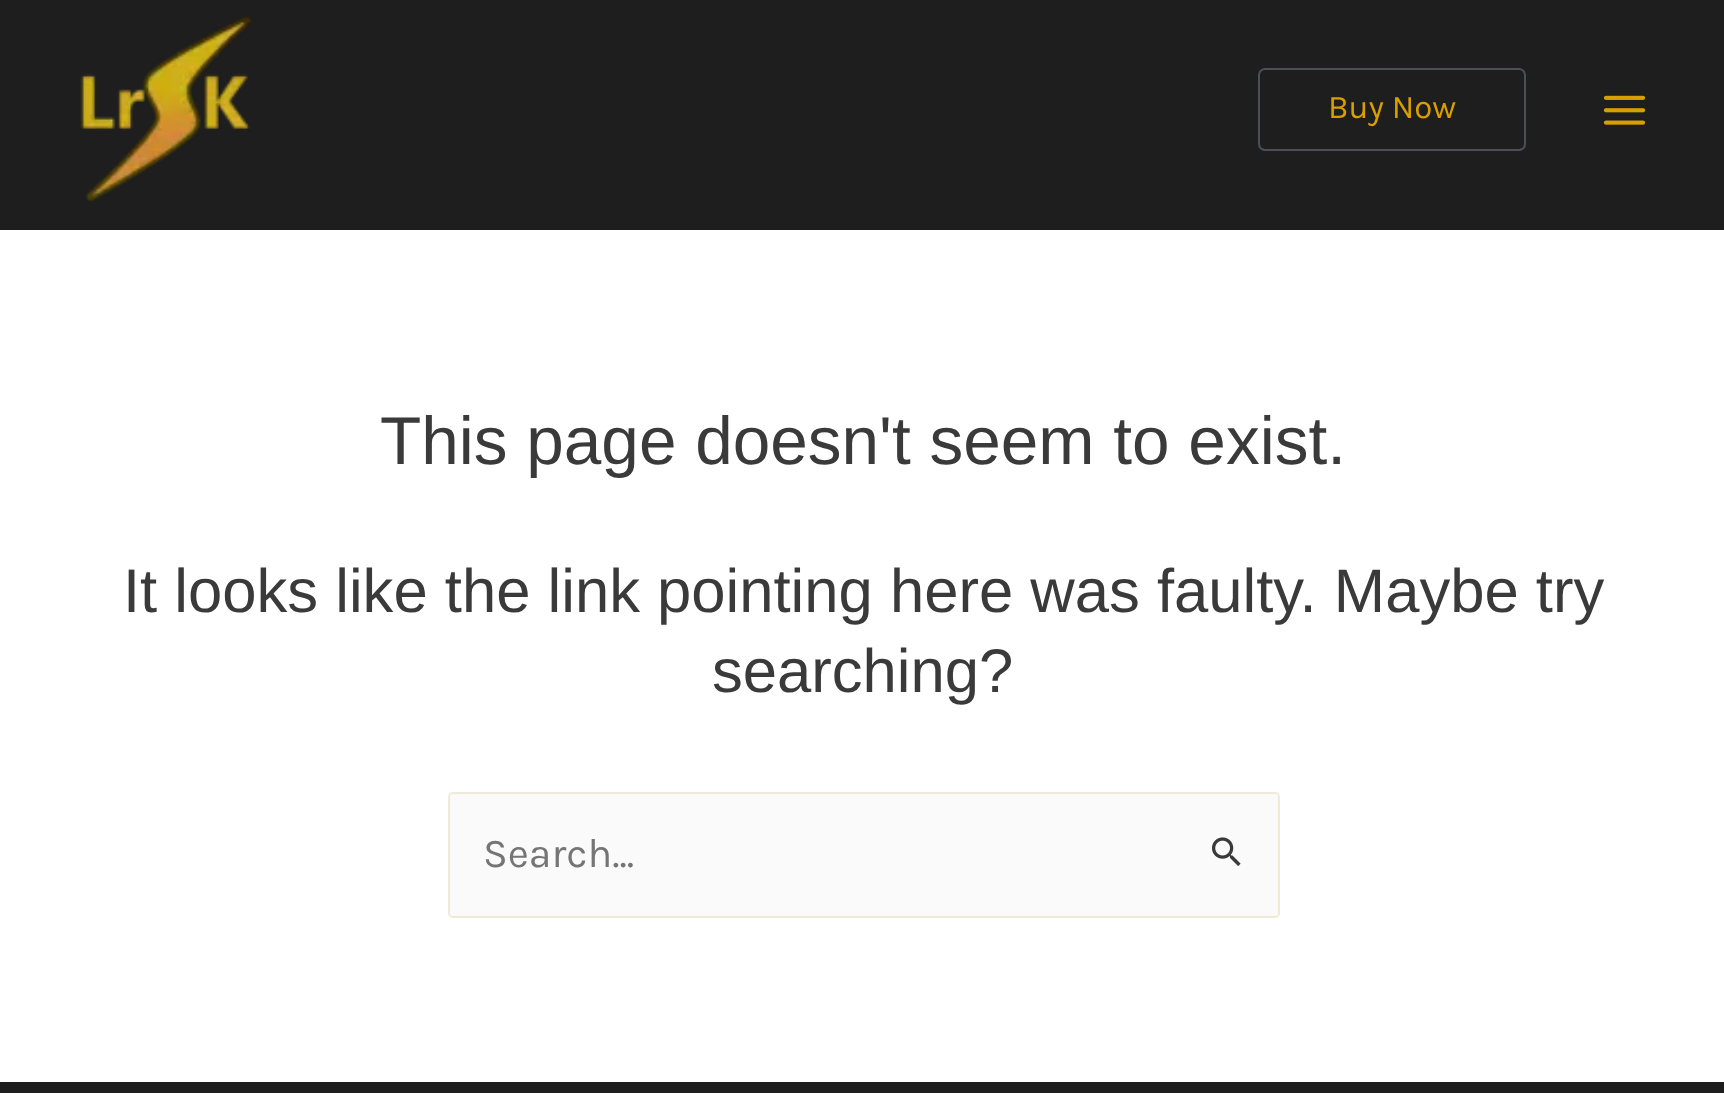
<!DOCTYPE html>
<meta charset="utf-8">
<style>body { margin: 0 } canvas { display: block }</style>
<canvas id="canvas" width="1724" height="1093"></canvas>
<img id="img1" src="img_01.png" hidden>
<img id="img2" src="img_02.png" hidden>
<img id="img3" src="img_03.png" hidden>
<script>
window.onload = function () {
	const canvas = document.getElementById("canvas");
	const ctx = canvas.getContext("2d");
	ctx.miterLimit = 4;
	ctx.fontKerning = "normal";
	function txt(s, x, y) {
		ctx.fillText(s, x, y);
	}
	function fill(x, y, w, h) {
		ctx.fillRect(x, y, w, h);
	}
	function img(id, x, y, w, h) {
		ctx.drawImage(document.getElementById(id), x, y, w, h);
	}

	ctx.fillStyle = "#FFFFFF";
	fill(0, 0, 1724, 1093);
	ctx.fillStyle = "#1E1E1E";
	fill(0, 0, 1724, 230);
	img("img1", 80, 15, 172, 186);
	ctx.beginPath();
	ctx.roundRect(1259, 69, 266, 81, 6);
	ctx.strokeStyle = "#4B4F58";
	ctx.lineWidth = 2;
	ctx.stroke();
	img("img2", 1603, 95, 43, 30);
	ctx.fillStyle = "#FAFAFA";
	ctx.beginPath();
	ctx.roundRect(449, 793, 830, 124, 4);
	ctx.fill();
	ctx.strokeStyle = "#EFEAD8";
	ctx.stroke();
	img("img3", 1211, 837, 30, 29);
	ctx.fillStyle = "#1E1E1E";
	fill(0, 1082, 1724, 11);
	ctx.font = "33px Karla";
	ctx.fillStyle = "#D99F00";
	txt("Buy Now", 1328, 118);
	ctx.font = "67.5px Liberation Sans";
	ctx.fillStyle = "#3A3A3A";
	txt("This page doesn't seem to exist.", 380, 464);
	ctx.font = "61.6px Liberation Sans";
	txt("It looks like the link pointing here was faulty. Maybe try", 123, 612);
	txt("searching?", 712, 692);
	ctx.font = "41px Karla";
	ctx.fillStyle = "#757575";
	txt("Search...", 483, 867);
};
</script>
